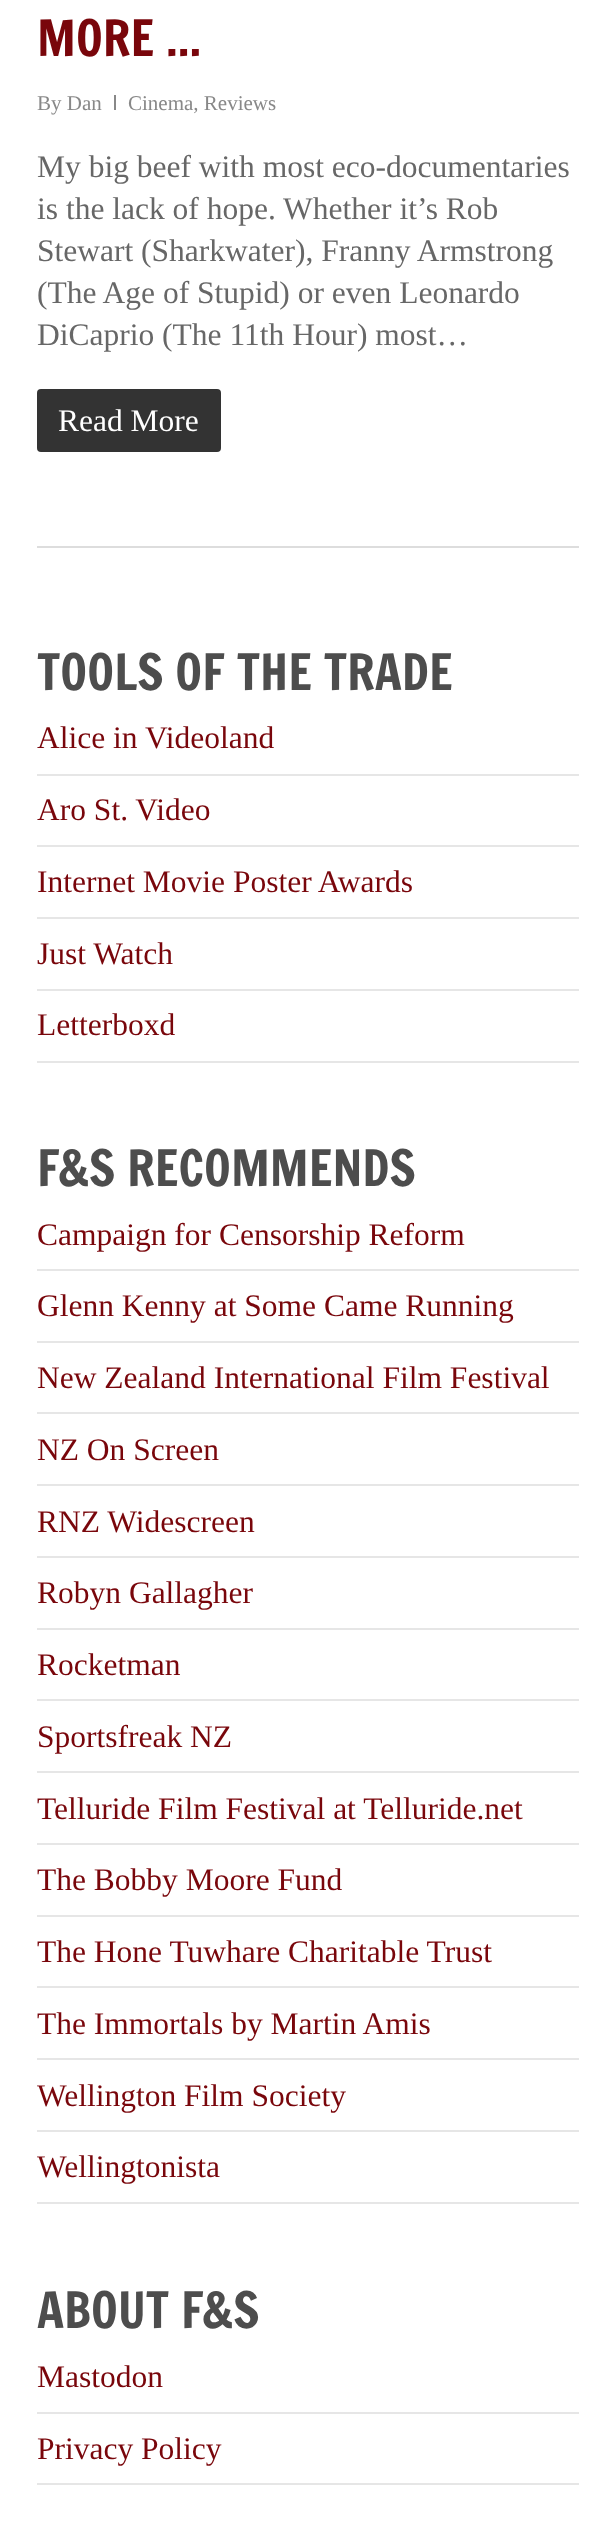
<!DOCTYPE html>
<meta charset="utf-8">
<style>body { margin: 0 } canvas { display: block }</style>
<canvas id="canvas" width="615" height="2542"></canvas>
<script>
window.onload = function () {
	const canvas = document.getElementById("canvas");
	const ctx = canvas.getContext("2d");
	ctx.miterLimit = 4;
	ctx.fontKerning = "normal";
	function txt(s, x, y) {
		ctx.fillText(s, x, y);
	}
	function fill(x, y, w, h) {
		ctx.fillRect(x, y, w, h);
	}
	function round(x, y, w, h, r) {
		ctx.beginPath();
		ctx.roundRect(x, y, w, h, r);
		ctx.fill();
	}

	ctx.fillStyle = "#FFFFFF";
	fill(0, 0, 615, 2542);
	ctx.fillStyle = "#DDDDDD";
	fill(37, 546, 542, 2);
	ctx.fillStyle = "#888888";
	fill(114, 95, 2, 15);
	ctx.fillStyle = "#333333";
	round(37, 389, 184, 63, 4);
	ctx.fillStyle = "#E6E6E6";
	fill(37, 774, 542, 2);
	fill(37, 845, 542, 2);
	fill(37, 917, 542, 2);
	fill(37, 989, 542, 2);
	fill(37, 1061, 542, 2);
	fill(37, 1269, 542, 2);
	fill(37, 1341, 542, 2);
	fill(37, 1412, 542, 2);
	fill(37, 1484, 542, 2);
	fill(37, 1556, 542, 2);
	fill(37, 1628, 542, 2);
	fill(37, 1699, 542, 2);
	fill(37, 1771, 542, 2);
	fill(37, 1843, 542, 2);
	fill(37, 1915, 542, 2);
	fill(37, 1986, 542, 2);
	fill(37, 2058, 542, 2);
	fill(37, 2130, 542, 2);
	fill(37, 2202, 542, 2);
	fill(37, 2412, 542, 2);
	fill(37, 2483, 542, 2);
	ctx.font = "49px Francois One";
	ctx.fillStyle = "#79060B";
	txt("MORE ...", 37, 56);
	ctx.font = "21px Liberation Serif";
	ctx.fillStyle = "#888888";
	txt("By Dan", 37, 110);
	txt("Cinema, Reviews", 128, 110);
	ctx.font = "31.5px Liberation Serif";
	ctx.fillStyle = "#676767";
	txt("My big beef with most eco-documentaries", 37, 177);
	txt("is the lack of hope. Whether it’s Rob", 37, 219);
	txt("Stewart (Sharkwater), Franny Armstrong", 37, 261);
	txt("(The Age of Stupid) or even Leonardo", 37, 303);
	txt("DiCaprio (The 11th Hour) most…", 37, 345);
	ctx.fillStyle = "#FFFFFF";
	txt("Read More", 58, 431);
	ctx.font = "49px Francois One";
	ctx.fillStyle = "#4D4D4D";
	txt("TOOLS OF THE TRADE", 37, 690);
	ctx.font = "31.5px Liberation Serif";
	ctx.fillStyle = "#79060B";
	txt("Alice in Videoland", 37, 748);
	txt("Aro St. Video", 37, 820);
	txt("Internet Movie Poster Awards", 37, 892);
	txt("Just Watch", 37, 964);
	txt("Letterboxd", 37, 1035);
	ctx.font = "49px Francois One";
	ctx.fillStyle = "#4D4D4D";
	txt("F&S RECOMMENDS", 37, 1186);
	ctx.font = "31.5px Liberation Serif";
	ctx.fillStyle = "#79060B";
	txt("Campaign for Censorship Reform", 37, 1245);
	txt("Glenn Kenny at Some Came Running", 37, 1316);
	txt("New Zealand International Film Festival", 37, 1388);
	txt("NZ On Screen", 37, 1460);
	txt("RNZ Widescreen", 37, 1532);
	txt("Robyn Gallagher", 37, 1603);
	txt("Rocketman", 37, 1675);
	txt("Sportsfreak NZ", 37, 1747);
	txt("Telluride Film Festival at Telluride.net", 37, 1819);
	txt("The Bobby Moore Fund", 37, 1890);
	txt("The Hone Tuwhare Charitable Trust", 37, 1962);
	txt("The Immortals by Martin Amis", 37, 2034);
	txt("Wellington Film Society", 37, 2106);
	txt("Wellingtonista", 37, 2177);
	ctx.font = "49px Francois One";
	ctx.fillStyle = "#4D4D4D";
	txt("ABOUT F&S", 37, 2328);
	ctx.font = "31.5px Liberation Serif";
	ctx.fillStyle = "#79060B";
	txt("Mastodon", 37, 2387);
	txt("Privacy Policy", 37, 2459);
};
</script>
